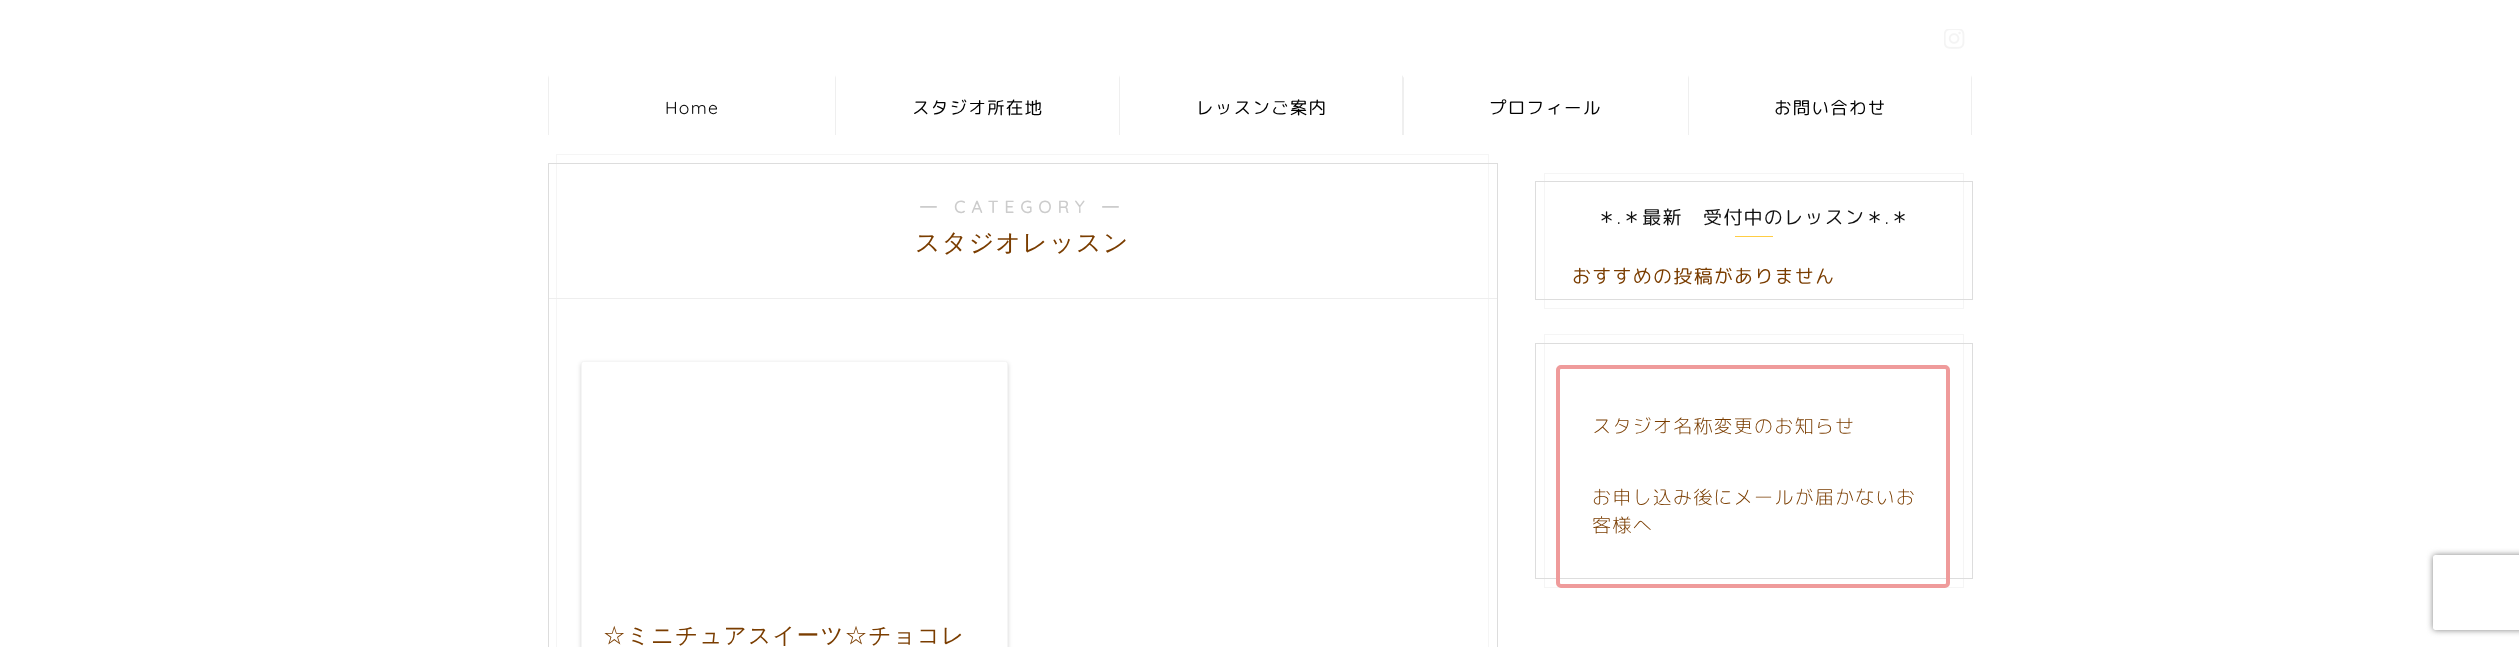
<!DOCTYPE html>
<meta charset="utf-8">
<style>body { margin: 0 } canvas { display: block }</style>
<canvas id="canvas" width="2519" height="647"></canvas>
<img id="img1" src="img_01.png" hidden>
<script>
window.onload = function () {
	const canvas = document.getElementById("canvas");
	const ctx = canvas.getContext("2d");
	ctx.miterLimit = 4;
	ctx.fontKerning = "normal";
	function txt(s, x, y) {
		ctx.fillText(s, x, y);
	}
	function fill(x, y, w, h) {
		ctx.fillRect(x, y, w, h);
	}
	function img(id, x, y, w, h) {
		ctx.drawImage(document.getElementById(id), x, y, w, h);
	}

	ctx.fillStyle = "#FFFFFF";
	fill(0, 0, 2519, 647);
	img("img1", 1944, 29, 21, 20);
	ctx.fillStyle = "#EFEFEF";
	ctx.beginPath();
	ctx.moveTo(548, 135);
	ctx.lineTo(548, 75);
	ctx.lineTo(549, 78);
	ctx.lineTo(549, 135);
	ctx.closePath();
	ctx.fill();
	ctx.beginPath();
	ctx.moveTo(835, 135);
	ctx.lineTo(835, 75);
	ctx.lineTo(836, 78);
	ctx.lineTo(836, 135);
	ctx.closePath();
	ctx.fill();
	ctx.beginPath();
	ctx.moveTo(1119, 135);
	ctx.lineTo(1119, 75);
	ctx.lineTo(1120, 78);
	ctx.lineTo(1120, 135);
	ctx.closePath();
	ctx.fill();
	ctx.beginPath();
	ctx.moveTo(1402, 135);
	ctx.lineTo(1402, 75);
	ctx.lineTo(1404, 78);
	ctx.lineTo(1404, 135);
	ctx.closePath();
	ctx.fill();
	ctx.beginPath();
	ctx.moveTo(1972, 75);
	ctx.lineTo(1972, 135);
	ctx.lineTo(1971, 135);
	ctx.lineTo(1971, 78);
	ctx.closePath();
	ctx.fill();
	ctx.beginPath();
	ctx.moveTo(1688, 135);
	ctx.lineTo(1688, 75);
	ctx.lineTo(1689, 78);
	ctx.lineTo(1689, 135);
	ctx.closePath();
	ctx.fill();
	ctx.strokeStyle = "#F5F5F5";
	ctx.strokeRect(556.5, 154.5, 932, 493);
	ctx.fillStyle = "#EEEEEE";
	fill(548, 298, 950, 1);
	ctx.strokeStyle = "#DDDDDD";
	ctx.strokeRect(548.5, 163.5, 949, 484);
	ctx.fillStyle = "rgba(0, 0, 0, 0.18)";
	ctx.filter = "blur(2px)";
	ctx.beginPath();
	ctx.roundRect(581, 363, 427, 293, 2.5);
	ctx.fill();
	ctx.filter = "none";
	ctx.fillStyle = "#FFFFFF";
	ctx.beginPath();
	ctx.roundRect(581.5, 361.5, 426, 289, 2);
	ctx.fill();
	ctx.strokeStyle = "#F5F5F5";
	ctx.stroke();
	ctx.fillStyle = "#FFCD44";
	fill(1735, 236, 38, 1);
	ctx.strokeRect(1544.5, 173.5, 419, 135);
	ctx.strokeStyle = "#DDDDDD";
	ctx.strokeRect(1535.5, 181.5, 437, 118);
	ctx.strokeStyle = "#F5F5F5";
	ctx.strokeRect(1544.5, 334.5, 419, 253);
	ctx.strokeStyle = "#DDDDDD";
	ctx.strokeRect(1535.5, 343.5, 437, 235);
	ctx.beginPath();
	ctx.roundRect(1558, 367, 390, 219, 3);
	ctx.strokeStyle = "#EF9B9B";
	ctx.lineWidth = 4;
	ctx.stroke();
	ctx.save();
	ctx.beginPath();
	ctx.moveTo(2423, 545);
	ctx.lineTo(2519, 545);
	ctx.lineTo(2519, 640);
	ctx.lineTo(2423, 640);
	ctx.closePath();
	ctx.moveTo(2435.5, 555);
	ctx.lineTo(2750.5, 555);
	ctx.bezierCurveTo(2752, 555, 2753, 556, 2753, 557.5);
	ctx.lineTo(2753, 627.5);
	ctx.bezierCurveTo(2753, 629, 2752, 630, 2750.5, 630);
	ctx.lineTo(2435.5, 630);
	ctx.bezierCurveTo(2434, 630, 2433, 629, 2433, 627.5);
	ctx.lineTo(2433, 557.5);
	ctx.bezierCurveTo(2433, 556, 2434, 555, 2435.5, 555);
	ctx.closePath();
	ctx.clip("evenodd");
	ctx.fillStyle = "#808080";
	ctx.filter = "blur(3px)";
	ctx.beginPath();
	ctx.roundRect(2433, 555, 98, 75, 2.5);
	ctx.fill();
	ctx.filter = "none";
	ctx.restore();
	ctx.letterSpacing = "1.25px";
	ctx.font = "300 17.5px Quicksand";
	ctx.fillStyle = "#000000";
	txt("Home", 665, 114);
	ctx.font = "17.5px 'Rounded Mplus 1c'";
	txt("スタジオ所在地", 912, 114);
	txt("レッスンご案内", 1196, 114);
	txt("プロフィール", 1489, 114);
	txt("お問い合わせ", 1774, 114);
	ctx.letterSpacing = "6.25px";
	ctx.font = "bold 17px 'Rounded Mplus 1c Bold'";
	ctx.fillStyle = "#CCCCCC";
	txt("―", 920, 213);
	ctx.font = "bold 17px Quicksand";
	txt("CATEGORY", 954, 213);
	ctx.font = "bold 17px 'Rounded Mplus 1c Bold'";
	txt("―", 1102, 213);
	ctx.letterSpacing = "1.25px";
	ctx.font = "500 25px WenQuanYi Zen Hei";
	ctx.fillStyle = "#7A3D00";
	txt("スタジオレッスン", 915, 251);
	ctx.font = "500 22.5px WenQuanYi Zen Hei";
	txt("☆ミニチュアスイーツ☆チョコレ", 603, 643);
	ctx.font = "19px 'Rounded Mplus 1c'";
	ctx.fillStyle = "#111111";
	txt("＊", 1597, 224);
	ctx.font = "300 19px Quicksand";
	txt(".", 1617, 224);
	ctx.font = "19px 'Rounded Mplus 1c'";
	txt("＊最新　受付中のレッスン＊", 1622, 224);
	ctx.font = "300 19px Quicksand";
	txt(".", 1885, 224);
	ctx.font = "19px 'Rounded Mplus 1c'";
	txt("＊", 1890, 224);
	ctx.fillStyle = "#7A3D00";
	txt("おすすめの投稿がありません", 1572, 283);
	ctx.font = "300 19px 'Rounded Mplus 1c'";
	txt("スタジオ名称変更のお知らせ", 1592, 433);
	txt("お申し込み後にメールが届かないお", 1592, 504);
	txt("客様へ", 1592, 532);
};
</script>
